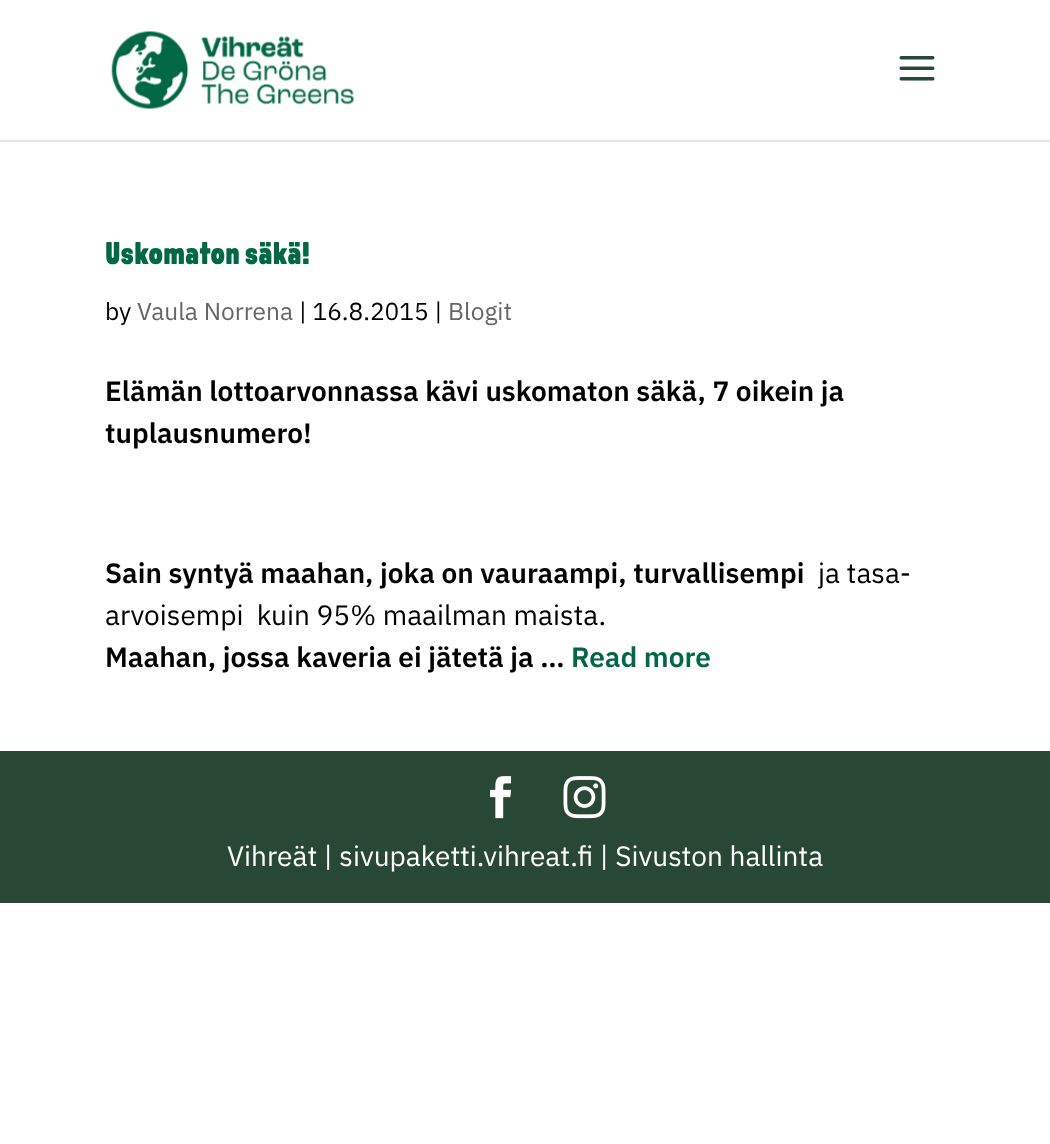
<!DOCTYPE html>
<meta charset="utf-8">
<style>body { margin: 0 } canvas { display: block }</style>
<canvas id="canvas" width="1050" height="1144"></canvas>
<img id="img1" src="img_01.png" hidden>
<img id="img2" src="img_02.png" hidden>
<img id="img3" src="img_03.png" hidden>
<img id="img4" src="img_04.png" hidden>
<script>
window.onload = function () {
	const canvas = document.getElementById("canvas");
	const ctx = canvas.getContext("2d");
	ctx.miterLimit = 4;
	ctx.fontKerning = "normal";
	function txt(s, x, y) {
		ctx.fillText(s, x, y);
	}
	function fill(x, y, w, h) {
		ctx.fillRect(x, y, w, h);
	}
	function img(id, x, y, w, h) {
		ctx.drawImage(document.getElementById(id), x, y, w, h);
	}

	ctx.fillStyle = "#FFFFFF";
	fill(0, 0, 1050, 1144);
	ctx.fillStyle = "#E6E6E6";
	fill(0, 140, 1050, 2);
	img("img1", 111, 31, 244, 78);
	img("img2", 899, 56, 36, 25);
	ctx.fillStyle = "#284734";
	fill(0, 751, 1050, 152);
	img("img3", 490, 776, 22, 43);
	img("img4", 563, 776, 43, 43);
	ctx.font = "900 31.5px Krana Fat";
	ctx.fillStyle = "#006845";
	txt("Uskomaton säkä!", 105, 264);
	ctx.font = "24.5px IBM Plex Sans";
	ctx.fillStyle = "#000000";
	txt("by", 105, 320);
	ctx.fillStyle = "#666666";
	txt("Vaula Norrena", 137, 320);
	ctx.fillStyle = "#000000";
	txt("| 16.8.2015 |", 299, 320);
	ctx.fillStyle = "#666666";
	txt("Blogit", 448, 320);
	ctx.font = "600 28px IBM Plex Sans";
	ctx.fillStyle = "#000000";
	txt("Elämän lottoarvonnassa kävi uskomaton säkä, 7 oikein ja", 105, 401);
	txt("tuplausnumero!", 105, 443);
	txt("Sain syntyä maahan, joka on vauraampi, turvallisempi", 105, 583);
	ctx.font = "28px IBM Plex Sans";
	txt("ja tasa-", 818, 583);
	txt("arvoisempi  kuin 95% maailman maista.", 105, 625);
	ctx.font = "600 28px IBM Plex Sans";
	txt("Maahan, jossa kaveria ei jätetä ja …", 105, 667);
	ctx.fillStyle = "#006845";
	txt("Read more", 571, 667);
	ctx.font = "28px IBM Plex Sans";
	ctx.fillStyle = "#FFFFFF";
	txt("Vihreät | sivupaketti.vihreat.fi | Sivuston hallinta", 227, 866);
};
</script>
